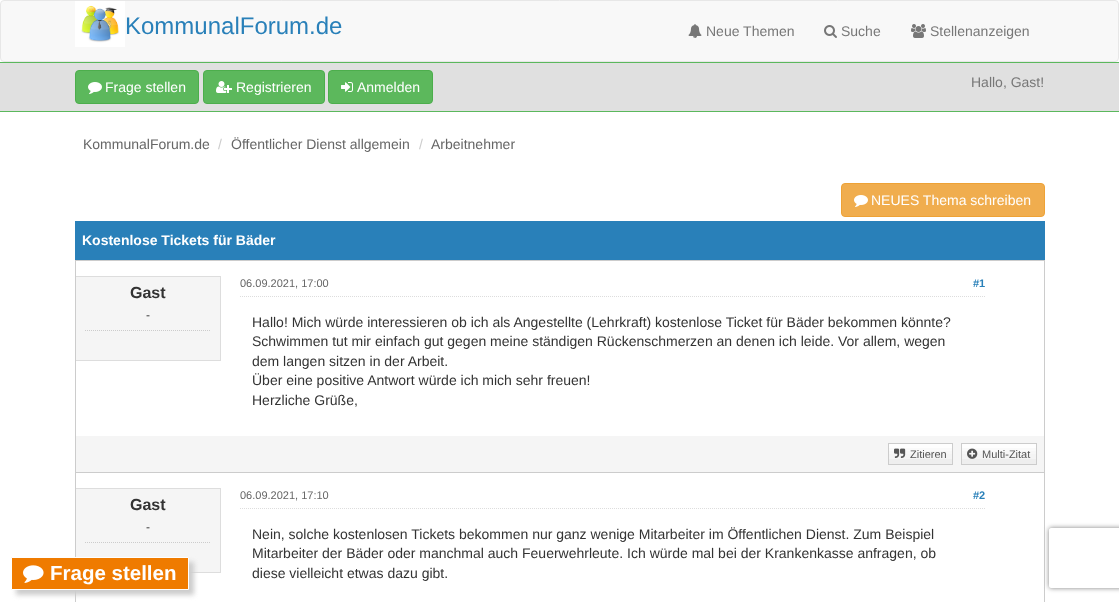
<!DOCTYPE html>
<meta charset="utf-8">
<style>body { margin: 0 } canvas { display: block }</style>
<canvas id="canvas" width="1119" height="602"></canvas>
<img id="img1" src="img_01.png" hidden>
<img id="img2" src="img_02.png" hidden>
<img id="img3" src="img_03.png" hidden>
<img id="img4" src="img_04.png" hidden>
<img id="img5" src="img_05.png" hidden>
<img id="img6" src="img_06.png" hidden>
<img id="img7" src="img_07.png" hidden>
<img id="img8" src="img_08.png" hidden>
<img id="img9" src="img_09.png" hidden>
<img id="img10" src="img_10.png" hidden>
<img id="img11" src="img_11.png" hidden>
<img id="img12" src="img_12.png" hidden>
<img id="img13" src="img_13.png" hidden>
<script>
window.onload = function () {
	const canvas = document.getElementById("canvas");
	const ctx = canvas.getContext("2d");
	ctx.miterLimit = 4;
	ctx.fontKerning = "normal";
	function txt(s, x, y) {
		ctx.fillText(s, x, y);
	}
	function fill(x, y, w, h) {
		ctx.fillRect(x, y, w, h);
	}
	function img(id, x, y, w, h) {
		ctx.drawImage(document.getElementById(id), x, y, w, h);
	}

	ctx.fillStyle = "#FFFFFF";
	fill(0, 0, 1119, 602);
	ctx.fillStyle = "#F8F8F8";
	ctx.beginPath();
	ctx.roundRect(0.5, 0.5, 1118, 61, 3.5);
	ctx.fill();
	ctx.strokeStyle = "#E7E7E7";
	ctx.stroke();
	img("img1", 75, 1, 50, 46);
	img("img2", 688, 24, 14, 14);
	img("img3", 824, 25, 13, 13);
	img("img4", 911, 24, 15, 14);
	ctx.fillStyle = "#E0E0E0";
	fill(0, 63, 1119, 48);
	ctx.fillStyle = "#5BB85D";
	fill(0, 62, 1119, 1);
	fill(0, 111, 1119, 1);
	ctx.fillStyle = "#5CB85C";
	ctx.beginPath();
	ctx.roundRect(75.5, 70.5, 123, 33, 3.5);
	ctx.fill();
	ctx.strokeStyle = "#4CAE4C";
	ctx.stroke();
	img("img5", 88, 82, 14, 12);
	ctx.beginPath();
	ctx.roundRect(203.5, 70.5, 121, 33, 3.5);
	ctx.fill();
	ctx.stroke();
	img("img6", 216, 81, 16, 12);
	ctx.beginPath();
	ctx.roundRect(328.5, 70.5, 104, 33, 3.5);
	ctx.fill();
	ctx.stroke();
	img("img7", 341, 82, 12, 10);
	ctx.fillStyle = "#F0AD4E";
	ctx.beginPath();
	ctx.roundRect(841.5, 183.5, 203, 33, 3.5);
	ctx.fill();
	ctx.strokeStyle = "#EEA236";
	ctx.stroke();
	img("img8", 854, 195, 14, 12);
	ctx.fillStyle = "#2980B9";
	fill(75, 221, 970, 39);
	ctx.strokeStyle = "#CCCCCC";
	ctx.strokeRect(75.5, 260.5, 969, 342);
	ctx.fillStyle = "#F5F5F5";
	fill(76, 489, 144, 83);
	ctx.fillStyle = "#DDDDDD";
	fill(76, 488, 145, 1);
	fill(220, 488, 1, 85);
	fill(189, 572, 32, 1);
	ctx.fillStyle = "#CCCCCC";
	ctx.filter = "blur(2.5px)";
	ctx.beginPath();
	ctx.rect(16, 562, 178, 33);
	ctx.fill();
	ctx.filter = "none";
	ctx.fillStyle = "#EF7B00";
	ctx.beginPath();
	ctx.rect(11.5, 557.5, 177, 32);
	ctx.fill();
	ctx.strokeStyle = "#FFFFFF";
	ctx.stroke();
	img("img9", 23, 565, 21, 18);
	ctx.fillStyle = "#F5F5F5";
	fill(76, 277, 144, 83);
	ctx.fillStyle = "#DDDDDD";
	fill(76, 276, 145, 1);
	fill(220, 276, 1, 85);
	fill(76, 360, 145, 1);
	ctx.beginPath();
	ctx.moveTo(85, 330.5);
	ctx.lineTo(210, 330.5);
	ctx.strokeStyle = "#CCCCCC";
	ctx.setLineDash([1, 1]);
	ctx.stroke();
	ctx.beginPath();
	ctx.moveTo(240, 296.5);
	ctx.lineTo(985, 296.5);
	ctx.strokeStyle = "#DDDDDD";
	ctx.stroke();
	ctx.fillStyle = "#F5F5F5";
	fill(76, 436, 968, 36);
	ctx.fillStyle = "#CCCCCC";
	fill(76, 472, 968, 1);
	ctx.fillStyle = "#EEEEEE";
	fill(889, 459, 63, 5);
	img("img10", 889, 444, 63, 15);
	ctx.strokeStyle = "#CCCCCC";
	ctx.setLineDash([]);
	ctx.strokeRect(888.5, 443.5, 64, 21);
	img("img11", 894, 448, 12, 10);
	fill(962, 459, 74, 5);
	img("img12", 962, 444, 74, 15);
	ctx.strokeRect(961.5, 443.5, 75, 21);
	img("img13", 967, 448, 11, 11);
	ctx.beginPath();
	ctx.moveTo(85, 542.5);
	ctx.lineTo(210, 542.5);
	ctx.setLineDash([1, 1]);
	ctx.stroke();
	ctx.beginPath();
	ctx.moveTo(240, 508.5);
	ctx.lineTo(985, 508.5);
	ctx.strokeStyle = "#DDDDDD";
	ctx.stroke();
	ctx.save();
	ctx.beginPath();
	ctx.moveTo(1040, 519);
	ctx.lineTo(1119, 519);
	ctx.lineTo(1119, 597);
	ctx.lineTo(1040, 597);
	ctx.closePath();
	ctx.moveTo(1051, 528);
	ctx.lineTo(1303, 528);
	ctx.bezierCurveTo(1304, 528, 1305, 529, 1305, 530);
	ctx.lineTo(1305, 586);
	ctx.bezierCurveTo(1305, 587, 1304, 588, 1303, 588);
	ctx.lineTo(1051, 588);
	ctx.bezierCurveTo(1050, 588, 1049, 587, 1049, 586);
	ctx.lineTo(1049, 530);
	ctx.bezierCurveTo(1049, 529, 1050, 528, 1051, 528);
	ctx.closePath();
	ctx.clip("evenodd");
	ctx.fillStyle = "#808080";
	ctx.filter = "blur(2.5px)";
	ctx.beginPath();
	ctx.roundRect(1049, 528, 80, 60, 2);
	ctx.fill();
	ctx.filter = "none";
	ctx.restore();
	ctx.font = "24px Liberation Sans";
	ctx.fillStyle = "#2980B9";
	txt("KommunalForum.de", 125, 34);
	ctx.font = "14px Liberation Sans";
	ctx.fillStyle = "#777777";
	txt("Neue Themen", 706, 36);
	txt("Suche", 841, 36);
	txt("Stellenanzeigen", 930, 36);
	ctx.fillStyle = "#FFFFFF";
	txt("Frage stellen", 105, 92);
	txt("Registrieren", 236, 92);
	txt("Anmelden", 357, 92);
	ctx.fillStyle = "#777777";
	txt("Hallo, Gast!", 971, 87);
	ctx.fillStyle = "#666666";
	txt("KommunalForum.de", 83, 149);
	ctx.fillStyle = "#CCCCCC";
	txt("/", 218, 149);
	ctx.fillStyle = "#666666";
	txt("Öffentlicher Dienst allgemein", 231, 149);
	ctx.fillStyle = "#CCCCCC";
	txt("/", 419, 149);
	ctx.fillStyle = "#666666";
	txt("Arbeitnehmer", 431, 149);
	ctx.fillStyle = "#FFFFFF";
	txt("NEUES Thema schreiben", 871, 205);
	ctx.font = "bold 14px Liberation Sans";
	txt("Kostenlose Tickets für Bäder", 82, 245);
	ctx.font = "bold 20.5px Liberation Sans";
	txt("Frage stellen", 50, 580);
	ctx.font = "bold 16px Liberation Sans";
	ctx.fillStyle = "#333333";
	txt("Gast", 130, 298);
	ctx.font = "12px Liberation Sans";
	txt("-", 146, 319);
	ctx.font = "11px Liberation Sans";
	ctx.fillStyle = "#666666";
	txt("06.09.2021, 17:00", 240, 287);
	ctx.font = "bold 11px Liberation Sans";
	ctx.fillStyle = "#2980B9";
	txt("#1", 973, 287);
	ctx.font = "14px Liberation Sans";
	ctx.fillStyle = "#333333";
	txt("Hallo! Mich würde interessieren ob ich als Angestellte (Lehrkraft) kostenlose Ticket für Bäder bekommen könnte?", 252, 327);
	txt("Schwimmen tut mir einfach gut gegen meine ständigen Rückenschmerzen an denen ich leide. Vor allem, wegen", 252, 346);
	txt("dem langen sitzen in der Arbeit.", 252, 366);
	txt("Über eine positive Antwort würde ich mich sehr freuen!", 252, 385);
	txt("Herzliche Grüße,", 252, 405);
	ctx.font = "11px Liberation Sans";
	ctx.fillStyle = "#555555";
	txt("Zitieren", 910, 458);
	txt("Multi-Zitat", 982, 458);
	ctx.font = "bold 16px Liberation Sans";
	ctx.fillStyle = "#333333";
	txt("Gast", 130, 510);
	ctx.font = "12px Liberation Sans";
	txt("-", 146, 531);
	ctx.font = "11px Liberation Sans";
	ctx.fillStyle = "#666666";
	txt("06.09.2021, 17:10", 240, 499);
	ctx.font = "bold 11px Liberation Sans";
	ctx.fillStyle = "#2980B9";
	txt("#2", 973, 499);
	ctx.font = "14px Liberation Sans";
	ctx.fillStyle = "#333333";
	txt("Nein, solche kostenlosen Tickets bekommen nur ganz wenige Mitarbeiter im Öffentlichen Dienst. Zum Beispiel", 252, 539);
	txt("Mitarbeiter der Bäder oder manchmal auch Feuerwehrleute. Ich würde mal bei der Krankenkasse anfragen, ob", 252, 558);
	txt("diese vielleicht etwas dazu gibt.", 252, 578);
};
</script>
